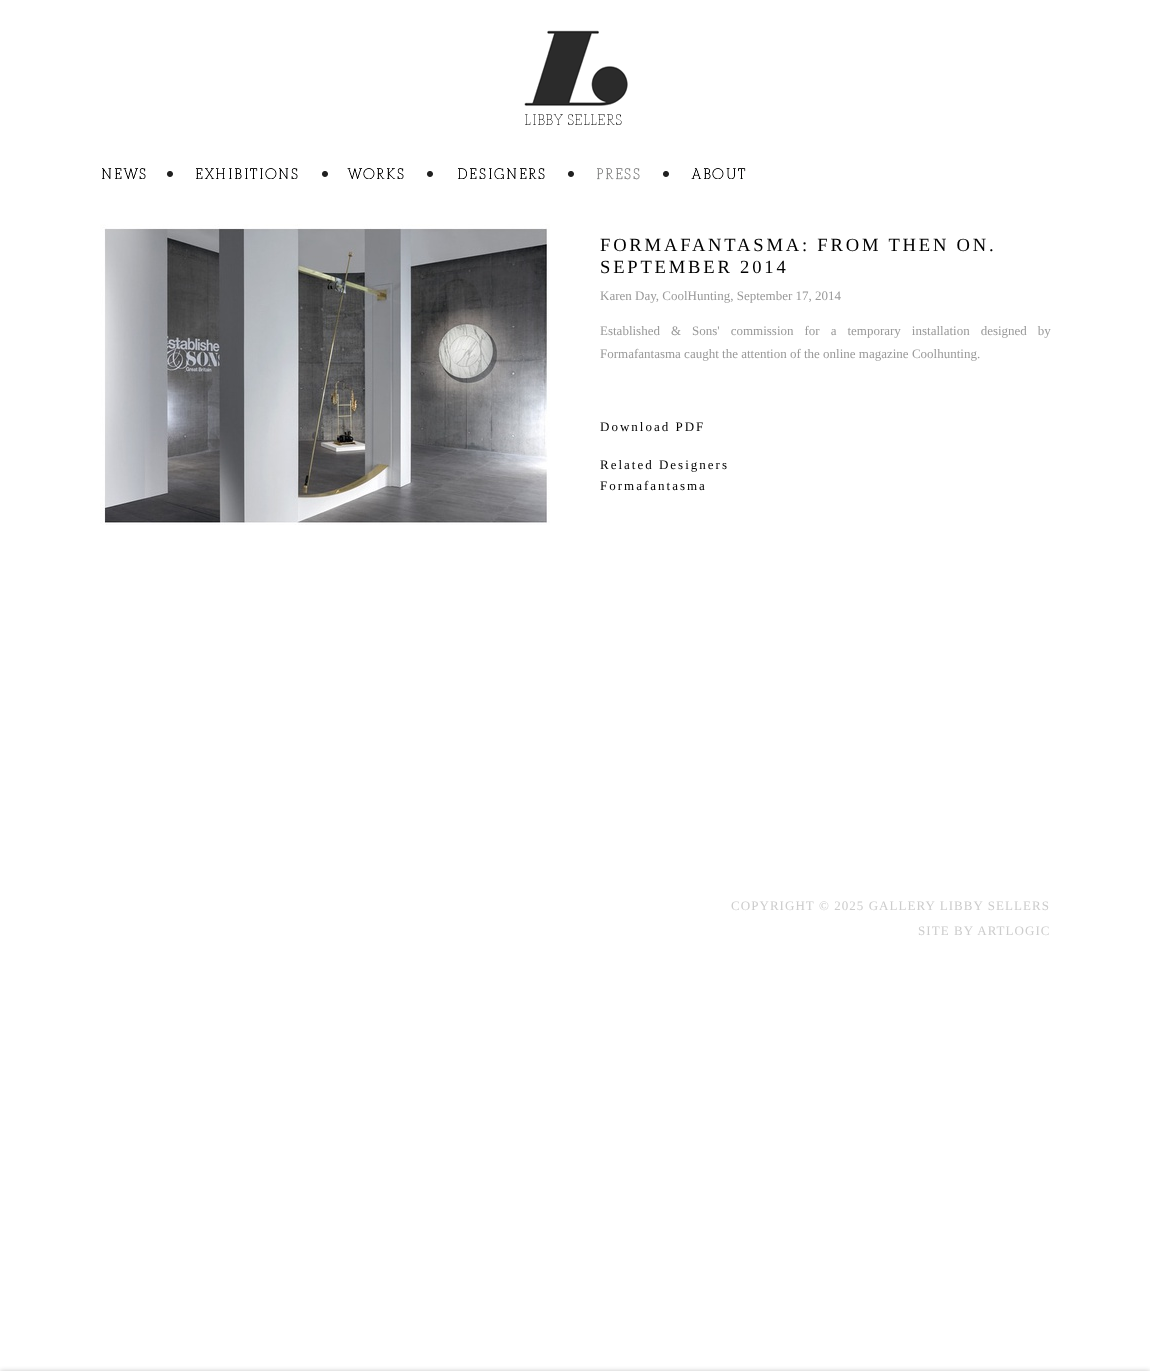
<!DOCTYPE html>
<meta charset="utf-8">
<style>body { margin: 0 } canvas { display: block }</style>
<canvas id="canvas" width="1150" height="1371"></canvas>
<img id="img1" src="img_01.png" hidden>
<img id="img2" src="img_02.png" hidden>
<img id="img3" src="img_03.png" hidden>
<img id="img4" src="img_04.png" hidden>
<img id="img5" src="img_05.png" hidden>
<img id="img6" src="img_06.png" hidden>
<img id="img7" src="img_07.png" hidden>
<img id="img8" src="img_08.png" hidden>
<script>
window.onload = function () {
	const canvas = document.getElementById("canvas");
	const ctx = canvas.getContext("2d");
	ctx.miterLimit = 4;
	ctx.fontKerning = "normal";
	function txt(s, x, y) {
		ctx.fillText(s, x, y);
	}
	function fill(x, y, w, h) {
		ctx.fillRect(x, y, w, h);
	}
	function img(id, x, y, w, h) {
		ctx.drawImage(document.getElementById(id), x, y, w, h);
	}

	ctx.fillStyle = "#FFFFFF";
	fill(0, 0, 1150, 1371);
	img("img1", 524, 30, 104, 95);
	img("img2", 102, 168, 71, 11);
	img("img3", 196, 168, 132, 11);
	img("img4", 347, 168, 86, 11);
	img("img5", 458, 168, 116, 11);
	img("img6", 597, 168, 72, 12);
	img("img7", 691, 168, 55, 11);
	img("img8", 100, 224, 450, 301);
	ctx.fillStyle = "rgba(0, 0, 0, 0.23)";
	ctx.filter = "blur(2.5px)";
	ctx.beginPath();
	ctx.rect(0, 1371, 1150, 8);
	ctx.fill();
	ctx.filter = "none";
	ctx.letterSpacing = "2.8px";
	ctx.font = "18.6px Liberation Serif";
	ctx.fillStyle = "#000000";
	txt("FORMAFANTASMA: FROM THEN ON.", 600, 251);
	txt("SEPTEMBER 2014", 600, 273);
	ctx.letterSpacing = "0px";
	ctx.font = "13px Liberation Serif";
	ctx.fillStyle = "#999999";
	txt("Karen Day, CoolHunting, September 17, 2014", 600, 300);
	ctx.wordSpacing = "7.75px";
	txt("Established & Sons' commission for a temporary installation designed by", 600, 335);
	ctx.wordSpacing = "0px";
	txt("Formafantasma caught the attention of the online magazine Coolhunting.", 600, 358);
	ctx.letterSpacing = "2px";
	ctx.fillStyle = "#000000";
	txt("Download PDF", 600, 431);
	txt("Related Designers", 600, 469);
	txt("Formafantasma", 600, 490);
	ctx.letterSpacing = "1.05px";
	ctx.fillStyle = "#CCCCCC";
	txt("COPYRIGHT © 2025 GALLERY LIBBY SELLERS", 731, 910);
	txt("SITE BY ARTLOGIC", 918, 935);
};
</script>
